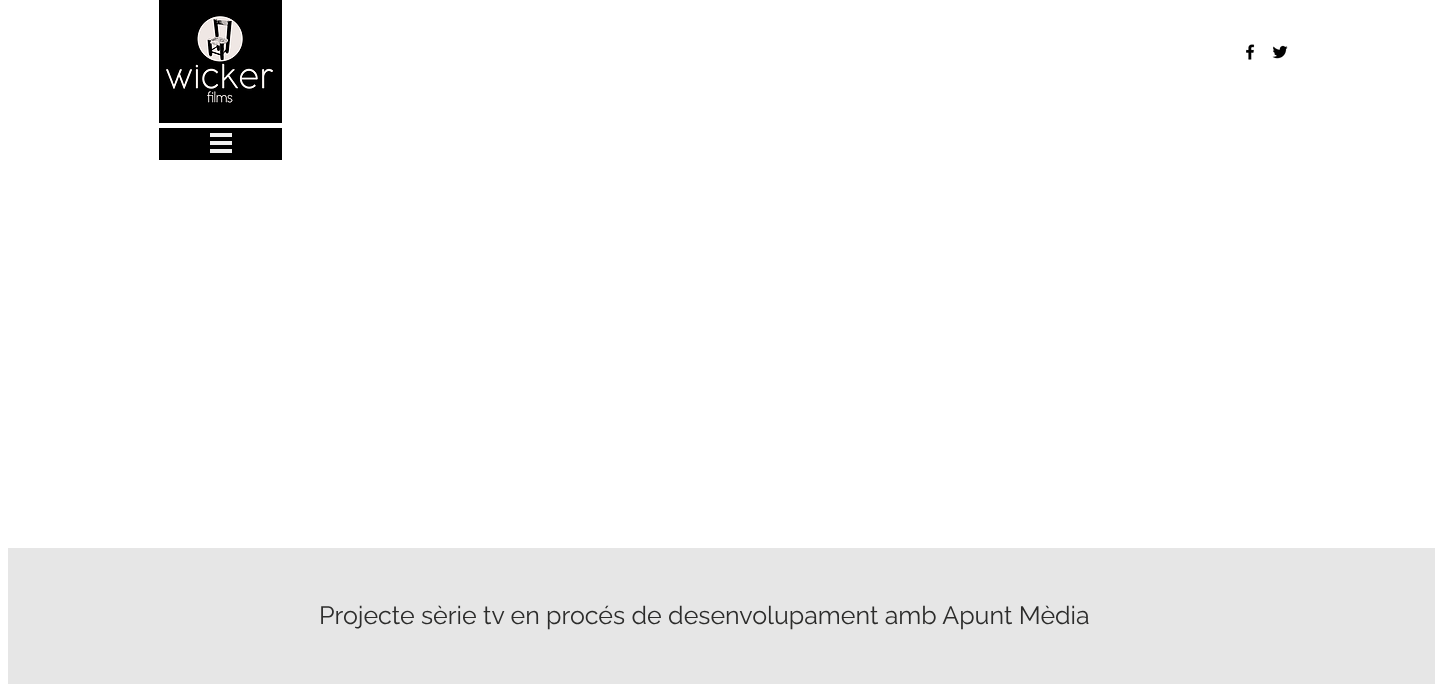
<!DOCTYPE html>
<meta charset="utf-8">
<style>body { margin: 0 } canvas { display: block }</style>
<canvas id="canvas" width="1435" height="693"></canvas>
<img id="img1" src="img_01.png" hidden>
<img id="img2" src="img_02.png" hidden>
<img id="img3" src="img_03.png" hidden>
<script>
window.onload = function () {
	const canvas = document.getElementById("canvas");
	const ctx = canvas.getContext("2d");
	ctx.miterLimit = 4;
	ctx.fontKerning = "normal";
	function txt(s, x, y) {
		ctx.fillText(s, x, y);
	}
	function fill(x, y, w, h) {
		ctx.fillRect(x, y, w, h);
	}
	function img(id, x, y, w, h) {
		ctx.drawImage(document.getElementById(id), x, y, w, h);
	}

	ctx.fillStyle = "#FFFFFF";
	fill(0, 0, 1435, 693);
	img("img1", 159, 0, 123, 123);
	img("img2", 1246, 44, 9, 16);
	img("img3", 1272, 45, 16, 14);
	ctx.fillStyle = "#000000";
	fill(159, 128, 123, 32);
	ctx.fillStyle = "#F1F1F1";
	fill(210, 133, 22, 4);
	fill(210, 141, 22, 4);
	fill(210, 149, 22, 4);
	ctx.fillStyle = "#E6E6E6";
	fill(8, 548, 1427, 136);
	ctx.font = "25px Raleway";
	ctx.fillStyle = "#2C2C2B";
	txt("Projecte sèrie tv en procés de desenvolupament amb Apunt Mèdia", 319, 624);
};
</script>
